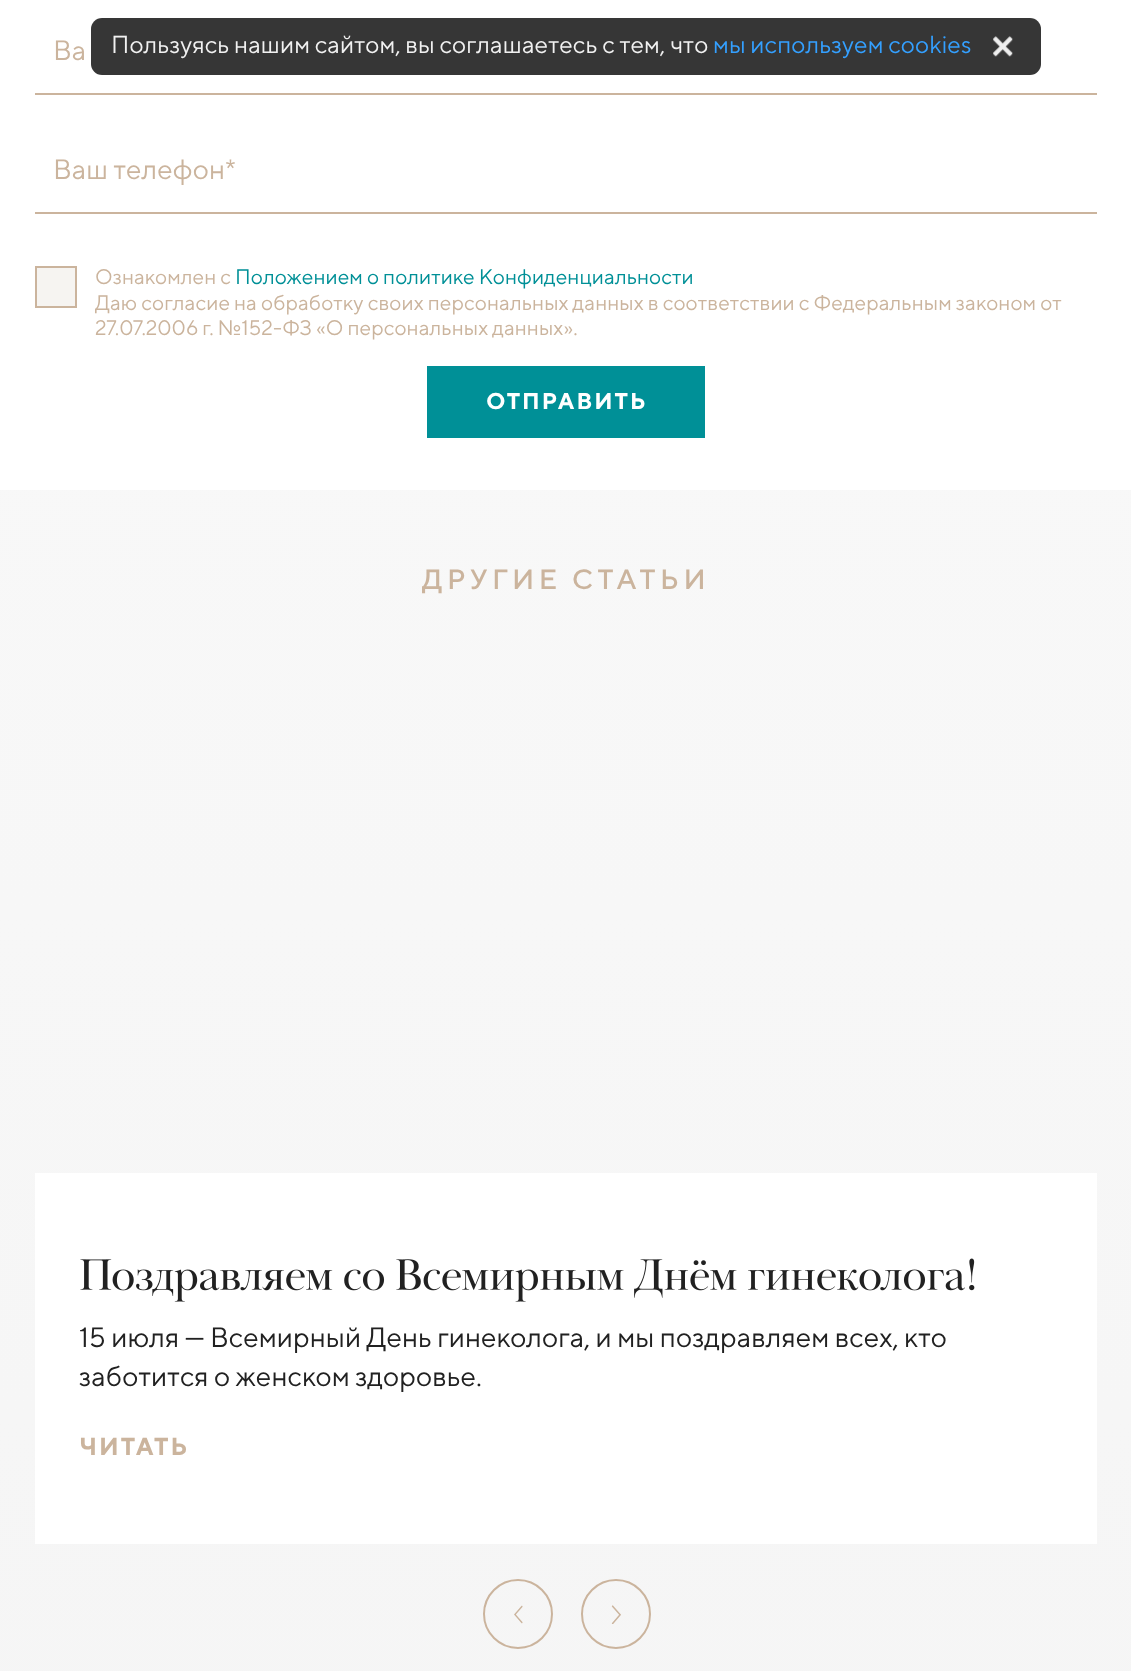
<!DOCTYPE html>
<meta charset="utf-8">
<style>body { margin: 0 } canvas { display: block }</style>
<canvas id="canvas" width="1131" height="1671"></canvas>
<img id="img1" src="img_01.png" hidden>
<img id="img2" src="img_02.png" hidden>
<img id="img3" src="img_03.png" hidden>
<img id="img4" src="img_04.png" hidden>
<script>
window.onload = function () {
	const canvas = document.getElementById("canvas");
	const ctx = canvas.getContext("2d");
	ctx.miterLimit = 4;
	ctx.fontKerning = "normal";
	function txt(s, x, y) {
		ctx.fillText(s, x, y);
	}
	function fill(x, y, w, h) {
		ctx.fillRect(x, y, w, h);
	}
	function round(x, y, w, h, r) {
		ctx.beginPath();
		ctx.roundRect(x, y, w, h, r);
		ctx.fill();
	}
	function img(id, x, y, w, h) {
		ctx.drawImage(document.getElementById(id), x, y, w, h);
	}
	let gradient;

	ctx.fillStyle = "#FFFFFF";
	fill(0, 0, 1131, 1671);
	ctx.fillStyle = "rgba(0, 0, 0, 0.79)";
	round(91, 18, 950, 57, 11);
	img("img1", 993, 36, 20, 21);
	gradient = ctx.createLinearGradient(566, -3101, 566, 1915);
	gradient.addColorStop(0, "#FFFFFF");
	gradient.addColorStop(1, "#F5F5F5");
	ctx.fillStyle = gradient;
	fill(0, 490, 1131, 1181);
	ctx.fillStyle = "#CBB49D";
	fill(35, 93, 1062, 2);
	fill(35, 212, 1062, 2);
	ctx.fillStyle = "#F6F4F1";
	ctx.beginPath();
	ctx.rect(36, 267, 40, 40);
	ctx.fill();
	ctx.strokeStyle = "#CBB49D";
	ctx.lineWidth = 2;
	ctx.stroke();
	ctx.fillStyle = "#009097";
	fill(427, 366, 278, 72);
	ctx.fillStyle = "#FFFFFF";
	fill(35, 1173, 1062, 371);
	img("img2", 80, 1258, 895, 44);
	ctx.beginPath();
	ctx.arc(518, 1614, 34, 0, Math.PI * 2);
	ctx.stroke();
	img("img3", 514, 1605, 9, 19);
	ctx.beginPath();
	ctx.arc(616, 1614, 34, 0, Math.PI * 2);
	ctx.stroke();
	img("img4", 611, 1605, 10, 19);
	ctx.font = "24.5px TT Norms";
	ctx.fillStyle = "#F1F1F1";
	txt("Пользуясь нашим сайтом, вы соглашаетесь с тем, что", 111, 53);
	ctx.fillStyle = "#34A0FF";
	txt("мы используем cookies", 713, 53);
	ctx.font = "28px TT Norms";
	ctx.fillStyle = "#CBB49D";
	txt("Ва", 53, 60);
	txt("Ваш телефон*", 53, 179);
	ctx.font = "21px TT Norms";
	txt("Ознакомлен с", 95, 284);
	ctx.fillStyle = "#009097";
	txt("Положением о политике Конфиденциальности", 235, 284);
	ctx.fillStyle = "#CBB49D";
	txt("Даю согласие на обработку своих персональных данных в соответствии с Федеральным законом от", 95, 310);
	txt("27.07.2006 г. №152-ФЗ «О персональных данных».", 95, 335);
	ctx.letterSpacing = "2px";
	ctx.font = "bold 22.75px TT Norms";
	ctx.fillStyle = "#FFFFFF";
	txt("ОТПРАВИТЬ", 486, 409);
	ctx.letterSpacing = "4.5px";
	ctx.font = "500 28px TT Norms";
	ctx.fillStyle = "#CBB49D";
	txt("ДРУГИЕ СТАТЬИ", 422, 589);
	ctx.letterSpacing = "0px";
	ctx.font = "28px TT Norms";
	ctx.fillStyle = "#212121";
	txt("15 июля — Всемирный День гинеколога, и мы поздравляем всех, кто", 79, 1347);
	txt("заботится о женском здоровье.", 79, 1386);
	ctx.letterSpacing = "2px";
	ctx.font = "bold 24.5px TT Norms";
	ctx.fillStyle = "#CBB49D";
	txt("ЧИТАТЬ", 79, 1455);
};
</script>
